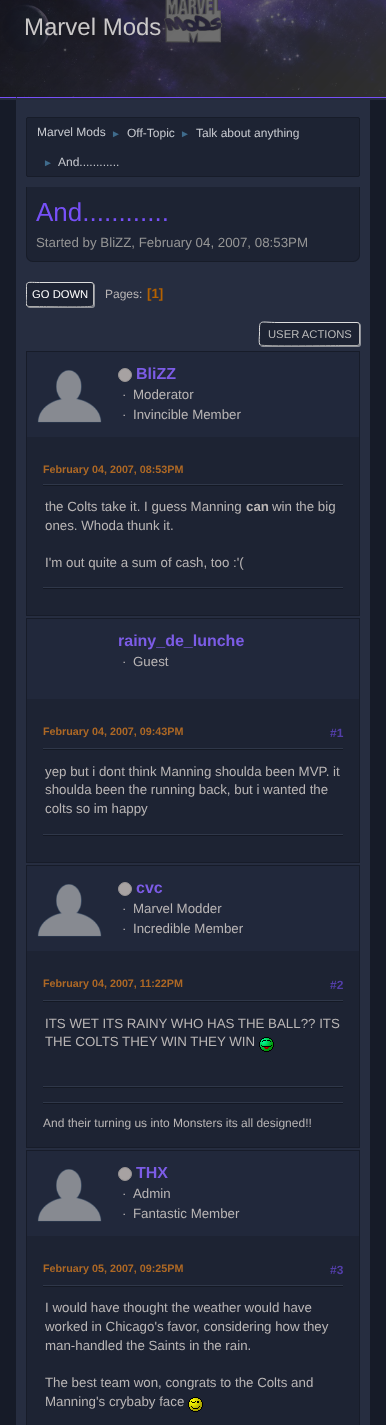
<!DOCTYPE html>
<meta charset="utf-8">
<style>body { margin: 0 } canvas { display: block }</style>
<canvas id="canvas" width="386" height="1425"></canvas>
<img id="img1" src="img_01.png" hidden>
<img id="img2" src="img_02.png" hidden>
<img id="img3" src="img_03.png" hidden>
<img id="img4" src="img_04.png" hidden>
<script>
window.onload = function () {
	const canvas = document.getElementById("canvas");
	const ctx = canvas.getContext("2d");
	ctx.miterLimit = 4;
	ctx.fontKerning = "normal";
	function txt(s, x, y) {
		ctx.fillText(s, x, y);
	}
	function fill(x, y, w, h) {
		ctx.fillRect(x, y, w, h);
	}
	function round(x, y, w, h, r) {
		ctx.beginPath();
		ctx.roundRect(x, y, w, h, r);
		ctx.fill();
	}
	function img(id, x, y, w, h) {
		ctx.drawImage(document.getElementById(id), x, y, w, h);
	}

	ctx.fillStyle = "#161B28";
	fill(0, 0, 386, 1425);
	img("img1", 0, 0, 386, 97);
	ctx.fillStyle = "#7750F8";
	fill(0, 97, 386, 1);
	ctx.fillStyle = "#242B3E";
	fill(0, 98, 386, 2);
	ctx.beginPath();
	ctx.roundRect(16, 97, 354, 1, [1, 1, 0, 0]);
	ctx.fill();
	ctx.fillStyle = "#7750F8";
	fill(17, 97, 353, 1);
	ctx.fillStyle = "#262D40";
	fill(16, 100, 354, 1325);
	ctx.fillStyle = "#1D2333";
	ctx.beginPath();
	ctx.roundRect(26.5, 117.5, 333, 59, 1.5);
	ctx.fill();
	ctx.strokeStyle = "#171C29";
	ctx.stroke();
	ctx.beginPath();
	ctx.roundRect(26, 187, 334, 75, [0, 0, 7, 7]);
	ctx.fill();
	ctx.fillStyle = "rgba(0, 0, 0, 0.2)";
	ctx.beginPath();
	ctx.moveTo(26, 187);
	ctx.lineTo(360, 187);
	ctx.lineTo(360, 255);
	ctx.bezierCurveTo(360, 259, 357, 262, 353, 262);
	ctx.lineTo(33, 262);
	ctx.bezierCurveTo(29, 262, 26, 259, 26, 255);
	ctx.closePath();
	ctx.moveTo(27, 187);
	ctx.lineTo(359, 187);
	ctx.lineTo(359, 255);
	ctx.bezierCurveTo(359, 258, 356, 261, 353, 261);
	ctx.lineTo(33, 261);
	ctx.bezierCurveTo(30, 261, 27, 258, 27, 255);
	ctx.closePath();
	ctx.fill("evenodd");
	ctx.fillStyle = "rgba(221, 221, 221, 0.57)";
	ctx.filter = "blur(0.5px)";
	ctx.beginPath();
	ctx.roundRect(27, 283, 68, 25, 3);
	ctx.fill();
	ctx.filter = "none";
	ctx.fillStyle = "#1D2333";
	round(26, 282, 68, 25, 3);
	ctx.beginPath();
	ctx.moveTo(93, 283);
	ctx.bezierCurveTo(93, 283.5, 93.5, 284.5, 93.5, 285);
	ctx.lineTo(93.5, 304);
	ctx.bezierCurveTo(93.5, 304.5, 93, 305.5, 93, 306);
	ctx.strokeStyle = "#BBBBBB";
	ctx.stroke();
	ctx.beginPath();
	ctx.moveTo(93, 306);
	ctx.lineTo(92.5, 306);
	ctx.bezierCurveTo(90.5, 307.5, 45.5, 306.5, 39.5, 306.5);
	ctx.lineTo(29, 306.5);
	ctx.lineTo(27, 306);
	ctx.strokeStyle = "#AAAAAA";
	ctx.stroke();
	ctx.save();
	ctx.beginPath();
	ctx.rect(26, 277, 334, 35);
	ctx.clip();
	ctx.beginPath();
	ctx.moveTo(27, 306);
	ctx.bezierCurveTo(25.5, 304, 26.5, 297, 26.5, 294.5);
	ctx.bezierCurveTo(26.5, 280, 24.5, 282.5, 39.5, 282.5);
	ctx.lineTo(91, 282.5);
	ctx.lineTo(93, 283);
	ctx.strokeStyle = "#DDDDDD";
	ctx.stroke();
	ctx.restore();
	ctx.fillStyle = "rgba(221, 221, 221, 0.57)";
	ctx.filter = "blur(0.5px)";
	ctx.beginPath();
	ctx.roundRect(260, 323, 101, 24, 3);
	ctx.fill();
	ctx.filter = "none";
	ctx.fillStyle = "#1D2333";
	round(259, 322, 101, 24, 3);
	ctx.beginPath();
	ctx.moveTo(359, 323);
	ctx.bezierCurveTo(359, 323.5, 359.5, 324.5, 359.5, 325);
	ctx.lineTo(359.5, 343);
	ctx.bezierCurveTo(359.5, 343.5, 359, 344.5, 359, 345);
	ctx.strokeStyle = "#BBBBBB";
	ctx.stroke();
	ctx.beginPath();
	ctx.moveTo(359, 345);
	ctx.lineTo(357, 345.5);
	ctx.lineTo(341, 345.5);
	ctx.bezierCurveTo(333, 345.5, 262.5, 346.5, 260.5, 345);
	ctx.lineTo(260, 345);
	ctx.strokeStyle = "#AAAAAA";
	ctx.stroke();
	ctx.beginPath();
	ctx.moveTo(260, 345);
	ctx.bezierCurveTo(258.5, 343, 259.5, 336, 259.5, 334);
	ctx.bezierCurveTo(259.5, 318.5, 258.5, 322.5, 278, 322.5);
	ctx.lineTo(357, 322.5);
	ctx.lineTo(359, 323);
	ctx.strokeStyle = "#DDDDDD";
	ctx.stroke();
	fill(27, 437, 332, 178);
	ctx.strokeStyle = "#171C29";
	ctx.strokeRect(26.5, 351.5, 333, 264);
	ctx.fillStyle = "#21283B";
	fill(27, 352, 332, 85);
	img("img2", 37, 370, 65, 53);
	ctx.fillStyle = "#A7A2A2";
	ctx.beginPath();
	ctx.arc(125, 375, 6.5, 0, Math.PI * 2);
	ctx.fill();
	ctx.strokeStyle = "#969292";
	ctx.stroke();
	ctx.fillStyle = "#141924";
	fill(43, 485, 300, 1);
	ctx.fillStyle = "#2F3749";
	fill(43, 484, 300, 1);
	ctx.fillStyle = "#141824";
	fill(43, 588, 300, 1);
	ctx.fillStyle = "#2F3749";
	fill(43, 587, 300, 1);
	ctx.fillStyle = "#1D2333";
	fill(27, 699, 332, 163);
	ctx.strokeStyle = "#171C29";
	ctx.strokeRect(26.5, 618.5, 333, 244);
	ctx.fillStyle = "#21283B";
	fill(27, 619, 332, 80);
	ctx.fillStyle = "#141924";
	fill(43, 749, 300, 1);
	ctx.fillStyle = "#2F3749";
	fill(43, 748, 300, 1);
	ctx.fillStyle = "#141824";
	fill(43, 835, 300, 1);
	ctx.fillStyle = "#2F3749";
	fill(43, 834, 300, 1);
	ctx.fillStyle = "#1D2333";
	fill(27, 951, 332, 196);
	ctx.strokeRect(26.5, 865.5, 333, 282);
	ctx.fillStyle = "#21283B";
	fill(27, 866, 332, 85);
	img("img2", 37, 884, 65, 53);
	ctx.fillStyle = "#A7A2A2";
	ctx.beginPath();
	ctx.arc(125, 889, 6.5, 0, Math.PI * 2);
	ctx.fill();
	ctx.strokeStyle = "#969292";
	ctx.stroke();
	ctx.fillStyle = "#141924";
	fill(43, 1001, 300, 1);
	ctx.fillStyle = "#2F3749";
	fill(43, 1000, 300, 1);
	img("img3", 259, 1037, 15, 15);
	ctx.fillStyle = "#141924";
	fill(43, 1087, 300, 1);
	ctx.fillStyle = "#2F3749";
	fill(43, 1086, 300, 1);
	ctx.fillStyle = "#141824";
	fill(43, 1103, 300, 1);
	ctx.fillStyle = "#2F3749";
	fill(43, 1102, 300, 1);
	ctx.fillStyle = "#1D2333";
	fill(27, 1236, 332, 189);
	ctx.strokeStyle = "#171C29";
	ctx.strokeRect(26.5, 1150.5, 333, 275);
	ctx.fillStyle = "#21283B";
	fill(27, 1151, 332, 85);
	img("img2", 37, 1169, 65, 53);
	ctx.fillStyle = "#A7A2A2";
	ctx.beginPath();
	ctx.arc(125, 1174, 6.5, 0, Math.PI * 2);
	ctx.fill();
	ctx.strokeStyle = "#969292";
	ctx.stroke();
	ctx.fillStyle = "#141924";
	fill(43, 1286, 300, 1);
	ctx.fillStyle = "#2F3749";
	fill(43, 1285, 300, 1);
	img("img4", 188, 1397, 15, 15);
	ctx.font = "24px Liberation Sans";
	ctx.fillStyle = "#CAC8C8";
	txt("Marvel Mods", 24, 35);
	ctx.font = "12px Liberation Sans";
	ctx.fillStyle = "#C8CAD0";
	txt("Marvel Mods", 37, 136);
	ctx.font = "10px Liberation Sans";
	ctx.fillStyle = "#3F6B8C";
	txt("►", 111, 137);
	ctx.font = "12px Liberation Sans";
	ctx.fillStyle = "#C8CAD0";
	txt("Off-Topic", 127, 137);
	ctx.font = "10px Liberation Sans";
	ctx.fillStyle = "#3F6B8C";
	txt("►", 180, 137);
	ctx.font = "12px Liberation Sans";
	ctx.fillStyle = "#C8CAD0";
	txt("Talk about anything", 196, 137);
	ctx.font = "10px Liberation Sans";
	ctx.fillStyle = "#3F6B8C";
	txt("►", 43, 166);
	ctx.font = "12px Liberation Sans";
	ctx.fillStyle = "#C8CAD0";
	txt("And............", 58, 166);
	ctx.font = "26px Liberation Sans";
	ctx.fillStyle = "#7750F8";
	txt("And............", 36, 221);
	ctx.font = "13.3px Liberation Sans";
	ctx.fillStyle = "#959595";
	txt("Started by BliZZ, February 04, 2007, 08:53PM", 36, 247);
	ctx.font = "11.25px Liberation Sans";
	ctx.fillStyle = "#FFFFFF";
	txt("GO DOWN", 32, 298);
	ctx.font = "12px Liberation Sans";
	ctx.fillStyle = "#B9B5B5";
	txt("Pages:", 105, 298);
	ctx.font = "bold 13.3px Liberation Sans";
	ctx.fillStyle = "#B46100";
	txt("[1]", 147, 298);
	ctx.font = "11.25px Liberation Sans";
	ctx.fillStyle = "#BBBBBB";
	txt("USER ACTIONS", 268, 338);
	ctx.font = "bold 16px Liberation Sans";
	ctx.fillStyle = "#7C5CE6";
	txt("BliZZ", 136, 379);
	ctx.font = "13.3px Liberation Sans";
	ctx.fillStyle = "#B9B5B5";
	txt("·", 122, 399);
	txt("Moderator", 133, 399);
	txt("·", 122, 419);
	txt("Invincible Member", 133, 419);
	ctx.font = "bold 10.75px Liberation Sans";
	ctx.fillStyle = "#AD6825";
	txt("February 04, 2007, 08:53PM", 43, 473);
	ctx.font = "13.3px Liberation Sans";
	ctx.fillStyle = "#B9B5B5";
	txt("the Colts take it. I guess Manning", 45, 511);
	ctx.font = "bold 13.3px Liberation Sans";
	txt("can", 246, 511);
	ctx.font = "13.3px Liberation Sans";
	txt("win the big", 272, 511);
	txt("ones. Whoda thunk it.", 45, 530);
	txt("I'm out quite a sum of cash, too :'(", 45, 567);
	ctx.font = "bold 16px Liberation Sans";
	ctx.fillStyle = "#7C5CE6";
	txt("rainy_de_lunche", 118, 646);
	ctx.font = "13.3px Liberation Sans";
	ctx.fillStyle = "#B9B5B5";
	txt("·", 122, 666);
	txt("Guest", 133, 666);
	ctx.font = "bold 10.75px Liberation Sans";
	ctx.fillStyle = "#AD6825";
	txt("February 04, 2007, 09:43PM", 43, 735);
	ctx.font = "bold 12px Liberation Sans";
	ctx.fillStyle = "#533EA9";
	txt("#1", 330, 737);
	ctx.font = "13.3px Liberation Sans";
	ctx.fillStyle = "#B9B5B5";
	txt("yep but i dont think Manning shoulda been MVP. it", 45, 776);
	txt("shoulda been the running back, but i wanted the", 45, 794);
	txt("colts so im happy", 45, 813);
	ctx.font = "bold 16px Liberation Sans";
	ctx.fillStyle = "#7C5CE6";
	txt("cvc", 136, 893);
	ctx.font = "13.3px Liberation Sans";
	ctx.fillStyle = "#B9B5B5";
	txt("·", 122, 913);
	txt("Marvel Modder", 133, 913);
	txt("·", 122, 933);
	txt("Incredible Member", 133, 933);
	ctx.font = "bold 10.75px Liberation Sans";
	ctx.fillStyle = "#AD6825";
	txt("February 04, 2007, 11:22PM", 43, 987);
	ctx.font = "bold 12px Liberation Sans";
	ctx.fillStyle = "#533EA9";
	txt("#2", 330, 989);
	ctx.font = "13.3px Liberation Sans";
	ctx.fillStyle = "#B9B5B5";
	txt("ITS WET ITS RAINY WHO HAS THE BALL?? ITS", 45, 1028);
	txt("THE COLTS THEY WIN THEY WIN", 45, 1046);
	ctx.font = "12px Liberation Sans";
	txt("And their turning us into Monsters its all designed!!", 43, 1127);
	ctx.font = "bold 16px Liberation Sans";
	ctx.fillStyle = "#7C5CE6";
	txt("THX", 136, 1178);
	ctx.font = "13.3px Liberation Sans";
	ctx.fillStyle = "#B9B5B5";
	txt("·", 122, 1198);
	txt("Admin", 133, 1198);
	txt("·", 122, 1218);
	txt("Fantastic Member", 133, 1218);
	ctx.font = "bold 10.75px Liberation Sans";
	ctx.fillStyle = "#AD6825";
	txt("February 05, 2007, 09:25PM", 43, 1272);
	ctx.font = "bold 12px Liberation Sans";
	ctx.fillStyle = "#533EA9";
	txt("#3", 330, 1274);
	ctx.font = "13.3px Liberation Sans";
	ctx.fillStyle = "#B9B5B5";
	txt("I would have thought the weather would have", 45, 1312);
	txt("worked in Chicago's favor, considering how they", 45, 1331);
	txt("man-handled the Saints in the rain.", 45, 1350);
	txt("The best team won, congrats to the Colts and", 45, 1387);
	txt("Manning's crybaby face", 45, 1406);
};
</script>
